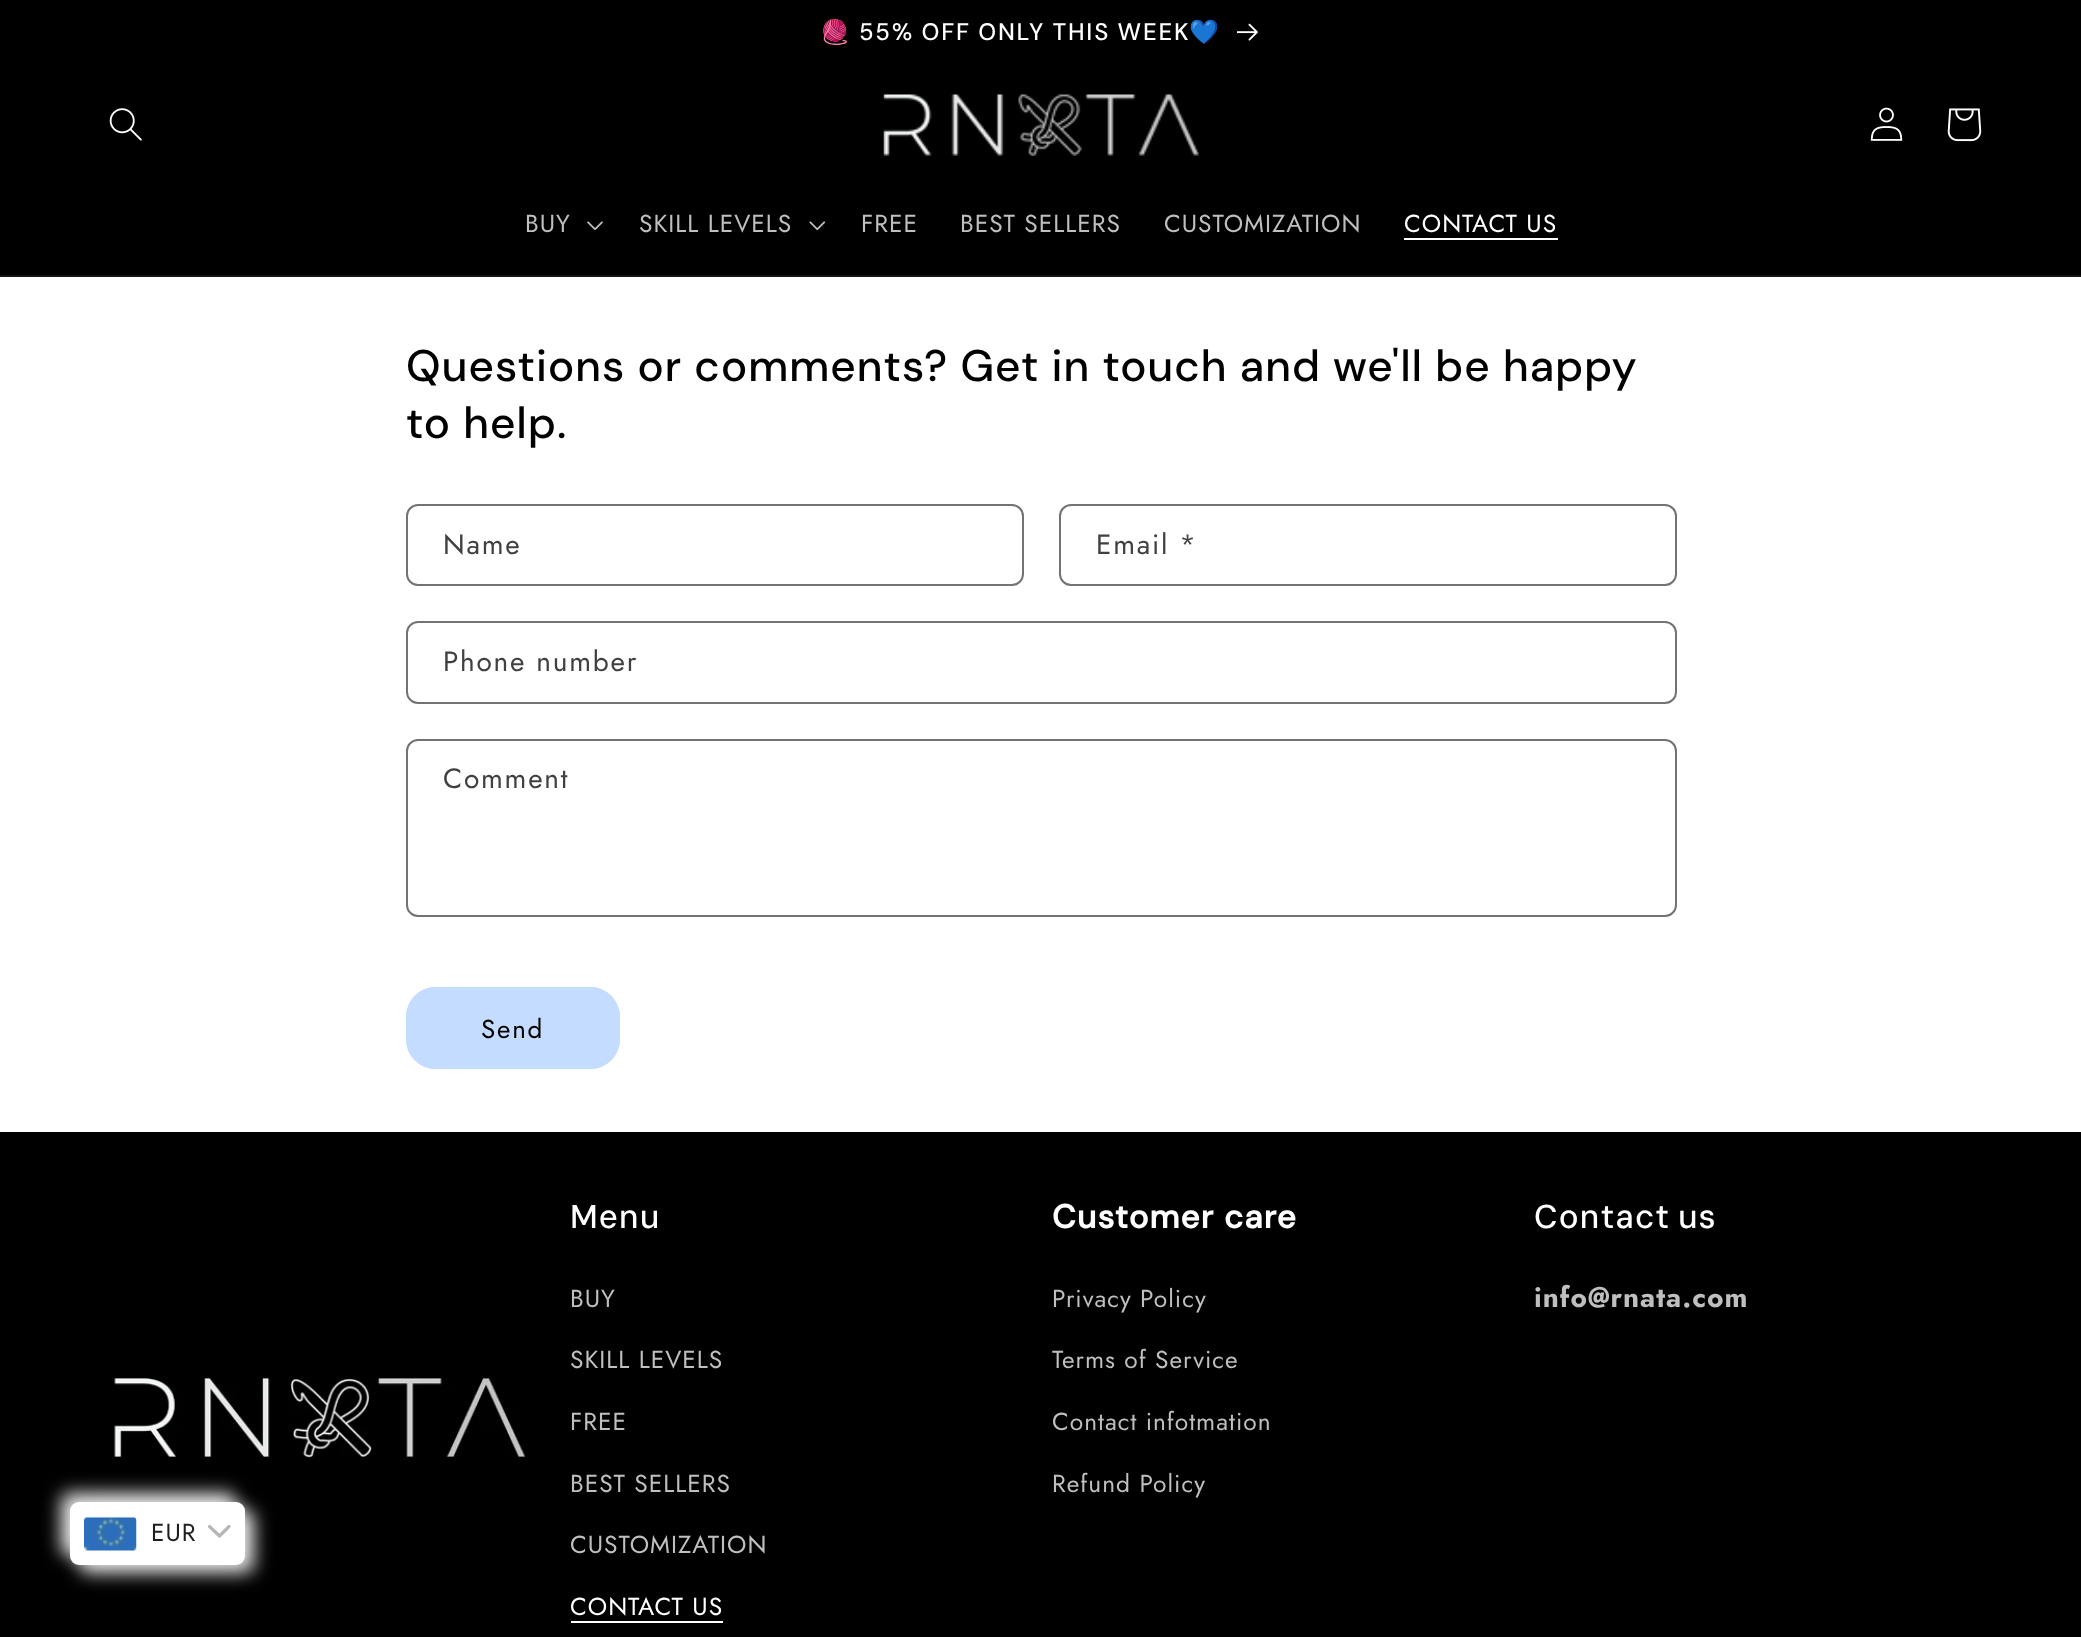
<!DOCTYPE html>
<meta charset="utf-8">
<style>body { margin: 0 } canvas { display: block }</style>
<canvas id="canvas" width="2081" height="1637"></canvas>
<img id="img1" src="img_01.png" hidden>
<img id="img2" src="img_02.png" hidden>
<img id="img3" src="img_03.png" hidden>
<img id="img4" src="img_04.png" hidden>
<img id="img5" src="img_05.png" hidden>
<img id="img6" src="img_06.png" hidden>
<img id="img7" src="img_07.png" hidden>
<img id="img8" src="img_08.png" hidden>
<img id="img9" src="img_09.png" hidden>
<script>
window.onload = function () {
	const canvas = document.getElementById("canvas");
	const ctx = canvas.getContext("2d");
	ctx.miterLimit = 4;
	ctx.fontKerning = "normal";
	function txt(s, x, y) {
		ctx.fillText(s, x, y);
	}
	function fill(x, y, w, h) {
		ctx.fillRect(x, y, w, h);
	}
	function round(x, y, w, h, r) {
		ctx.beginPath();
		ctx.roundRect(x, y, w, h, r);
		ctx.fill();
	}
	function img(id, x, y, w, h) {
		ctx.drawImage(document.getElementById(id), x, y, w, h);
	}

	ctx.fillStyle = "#FFFFFF";
	fill(0, 0, 2081, 1637);
	ctx.fillStyle = "#000000";
	fill(0, 0, 2081, 275);
	img("img1", 1237, 23, 21, 18);
	ctx.fillStyle = "#141414";
	fill(0, 275, 2081, 2);
	img("img2", 109, 108, 33, 33);
	img("img3", 883, 94, 316, 62);
	img("img4", 1870, 107, 33, 34);
	img("img5", 1947, 108, 35, 34);
	img("img6", 587, 221, 16, 9);
	img("img7", 809, 221, 17, 10);
	ctx.fillStyle = "#FFFFFF";
	fill(1404, 238, 154, 2);
	ctx.beginPath();
	ctx.roundRect(407, 505, 616, 80, 11);
	ctx.strokeStyle = "#737373";
	ctx.lineWidth = 2;
	ctx.stroke();
	ctx.beginPath();
	ctx.roundRect(1060, 505, 616, 80, 11);
	ctx.stroke();
	ctx.beginPath();
	ctx.roundRect(407, 622, 1269, 81, 11);
	ctx.stroke();
	ctx.beginPath();
	ctx.roundRect(407, 740, 1269, 176, 11);
	ctx.stroke();
	ctx.fillStyle = "#C4DCFF";
	round(406, 987, 214, 82, 30);
	ctx.beginPath();
	ctx.roundRect(407, 988, 212, 80, 29);
	ctx.strokeStyle = "#C4DCFF";
	ctx.stroke();
	ctx.fillStyle = "#000000";
	fill(0, 1132, 2081, 505);
	ctx.fillStyle = "#E8E8E8";
	ctx.filter = "blur(9px)";
	ctx.beginPath();
	ctx.roundRect(61, 1493, 175, 63, 9);
	ctx.fill();
	ctx.filter = "none";
	ctx.filter = "blur(9px)";
	ctx.beginPath();
	ctx.roundRect(79, 1510, 175, 63, 9);
	ctx.fill();
	ctx.filter = "none";
	ctx.fillStyle = "#FFFFFF";
	round(70, 1502, 175, 63, 9);
	img("img8", 84, 1516, 53, 35);
	ctx.beginPath();
	ctx.moveTo(209.5, 1526.5);
	ctx.lineTo(219.5, 1536);
	ctx.lineTo(229, 1526.5);
	ctx.strokeStyle = "#B7B7B7";
	ctx.lineWidth = 3.2;
	ctx.lineCap = "round";
	ctx.lineJoin = "round";
	ctx.stroke();
	fill(571, 1621, 152, 2);
	img("img9", 114, 1378, 412, 80);
	ctx.letterSpacing = "1.75px";
	ctx.font = "23.9px Noto Color Emoji";
	txt("🧶", 820, 40);
	ctx.wordSpacing = "-0.5px";
	ctx.font = "500 23.9px 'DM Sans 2'";
	txt("55% OFF ONLY THIS WEEK", 859, 40);
	ctx.wordSpacing = "0px";
	ctx.font = "23.9px Noto Color Emoji";
	txt("💙️", 1189, 40);
	ctx.letterSpacing = "1px";
	ctx.font = "24.5px Jost";
	ctx.fillStyle = "#BFBFBF";
	txt("BUY", 525, 232);
	txt("SKILL LEVELS", 639, 232);
	txt("FREE", 861, 232);
	txt("BEST SELLERS", 960, 232);
	txt("CUSTOMIZATION", 1164, 232);
	ctx.fillStyle = "#FFFFFF";
	txt("CONTACT US", 1404, 232);
	ctx.letterSpacing = "1.1px";
	ctx.font = "500 44.1px DM Sans";
	ctx.fillStyle = "#000000";
	txt("Questions or comments? Get in touch and we'll be happy", 406, 381);
	txt("to help.", 406, 438);
	ctx.letterSpacing = "1.75px";
	ctx.font = "28px Jost";
	ctx.fillStyle = "#404040";
	txt("Name", 443, 554);
	txt("Email *", 1096, 554);
	txt("Phone number", 443, 671);
	txt("Comment", 443, 788);
	ctx.font = "26px Jost";
	ctx.fillStyle = "#000000";
	txt("Send", 481, 1038);
	ctx.letterSpacing = "1px";
	ctx.font = "24.5px Jost";
	ctx.fillStyle = "#1E1E1E";
	txt("EUR", 151, 1541);
	ctx.letterSpacing = "1.1px";
	ctx.font = "500 33px 'DM Sans 2'";
	ctx.fillStyle = "#FFFFFF";
	txt("Menu", 570, 1228);
	ctx.letterSpacing = "1px";
	ctx.font = "24.5px Jost";
	ctx.fillStyle = "#BFBFBF";
	txt("BUY", 570, 1307);
	txt("SKILL LEVELS", 570, 1368);
	txt("FREE", 570, 1430);
	txt("BEST SELLERS", 570, 1492);
	txt("CUSTOMIZATION", 570, 1553);
	ctx.fillStyle = "#FFFFFF";
	txt("CONTACT US", 570, 1615);
	ctx.letterSpacing = "1.1px";
	ctx.font = "bold 33px DM Sans";
	txt("Customer care", 1052, 1228);
	ctx.letterSpacing = "1px";
	ctx.font = "24.5px Jost";
	ctx.fillStyle = "#BFBFBF";
	txt("Privacy Policy", 1052, 1307);
	txt("Terms of Service", 1052, 1368);
	txt("Contact infotmation", 1052, 1430);
	txt("Refund Policy", 1052, 1492);
	ctx.letterSpacing = "1.1px";
	ctx.wordSpacing = "-2px";
	ctx.font = "500 33px 'DM Sans 2'";
	ctx.fillStyle = "#FFFFFF";
	txt("Contact us", 1534, 1228);
	ctx.letterSpacing = "1px";
	ctx.wordSpacing = "0px";
	ctx.font = "bold 28px Jost";
	ctx.fillStyle = "#BFBFBF";
	txt("info@rnata.com", 1534, 1307);
};
</script>
